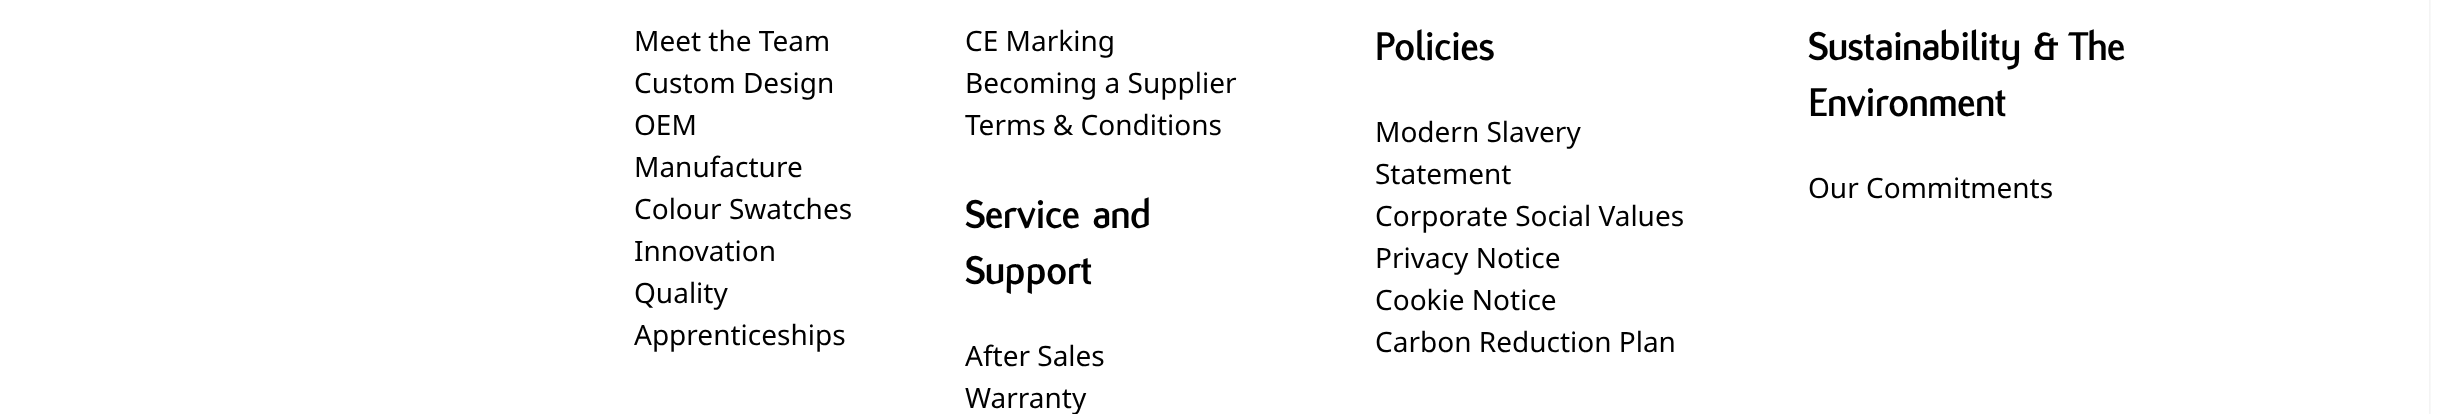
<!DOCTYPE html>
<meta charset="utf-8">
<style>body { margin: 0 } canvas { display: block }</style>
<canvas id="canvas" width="2455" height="414"></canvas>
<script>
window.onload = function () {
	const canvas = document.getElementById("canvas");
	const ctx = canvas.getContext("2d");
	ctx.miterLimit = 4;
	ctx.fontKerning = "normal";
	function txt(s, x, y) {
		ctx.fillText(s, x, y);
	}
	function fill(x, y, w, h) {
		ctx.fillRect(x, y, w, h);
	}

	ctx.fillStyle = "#FFFFFF";
	fill(0, 0, 2455, 414);
	ctx.save();
	ctx.beginPath();
	ctx.rect(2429, 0, 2, 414);
	ctx.clip();
	ctx.fillStyle = "rgba(0, 0, 0, 0.1)";
	ctx.filter = "blur(2.5px)";
	ctx.beginPath();
	ctx.rect(0, -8, 2429, 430);
	ctx.fill();
	ctx.filter = "none";
	ctx.restore();
	ctx.font = "28px Noto Sans";
	ctx.fillStyle = "#000000";
	txt("Meet the Team", 634, 51);
	txt("Custom Design", 634, 93);
	txt("OEM", 634, 135);
	txt("Manufacture", 634, 177);
	txt("Colour Swatches", 634, 219);
	txt("Innovation", 634, 261);
	txt("Quality", 634, 303);
	txt("Apprenticeships", 634, 345);
	txt("CE Marking", 965, 51);
	txt("Becoming a Supplier", 965, 93);
	txt("Terms & Conditions", 965, 135);
	ctx.font = "bold 42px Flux";
	txt("Service and", 965, 228);
	txt("Support", 965, 284);
	ctx.font = "28px Noto Sans";
	txt("After Sales", 965, 366);
	txt("Warranty", 965, 408);
	ctx.font = "bold 42px Flux";
	txt("Policies", 1375, 60);
	ctx.font = "28px Noto Sans";
	txt("Modern Slavery", 1375, 142);
	txt("Statement", 1375, 184);
	txt("Corporate Social Values", 1375, 226);
	txt("Privacy Notice", 1375, 268);
	txt("Cookie Notice", 1375, 310);
	txt("Carbon Reduction Plan", 1375, 352);
	ctx.font = "bold 42px Flux";
	txt("Sustainability & The", 1808, 60);
	txt("Environment", 1808, 116);
	ctx.font = "28px Noto Sans";
	txt("Our Commitments", 1808, 198);
};
</script>
